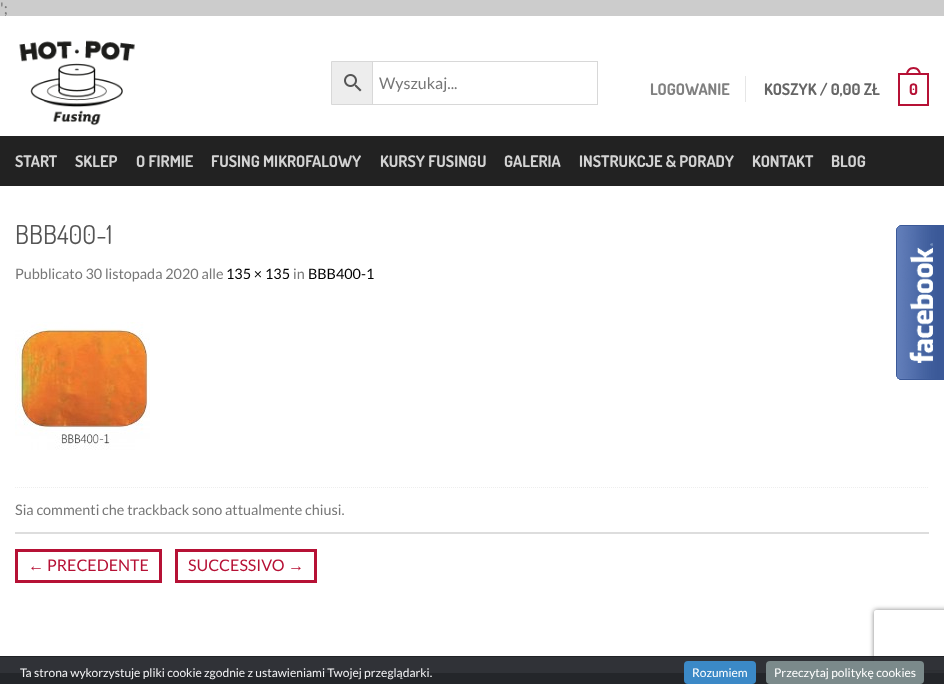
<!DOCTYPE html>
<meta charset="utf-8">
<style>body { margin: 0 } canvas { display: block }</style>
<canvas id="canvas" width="944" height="684"></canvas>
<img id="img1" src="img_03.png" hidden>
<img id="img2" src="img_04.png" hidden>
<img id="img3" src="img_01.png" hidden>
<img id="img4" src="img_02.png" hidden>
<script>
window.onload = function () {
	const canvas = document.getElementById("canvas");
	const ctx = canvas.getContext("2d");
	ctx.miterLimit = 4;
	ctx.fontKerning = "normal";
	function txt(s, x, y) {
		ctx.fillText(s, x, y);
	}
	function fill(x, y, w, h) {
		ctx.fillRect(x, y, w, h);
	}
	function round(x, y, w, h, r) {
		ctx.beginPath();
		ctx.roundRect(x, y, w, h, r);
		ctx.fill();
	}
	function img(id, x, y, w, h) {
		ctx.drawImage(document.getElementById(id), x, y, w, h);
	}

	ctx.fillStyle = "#CCCCCC";
	fill(0, 0, 944, 684);
	ctx.fillStyle = "#FFFFFF";
	fill(0, 186, 944, 487);
	ctx.fillStyle = "#222222";
	fill(0, 136, 944, 50);
	img("img1", 15, 322, 135, 128);
	ctx.beginPath();
	ctx.moveTo(15, 487.5);
	ctx.lineTo(929, 487.5);
	ctx.strokeStyle = "#EEEEEE";
	ctx.setLineDash([1, 1]);
	ctx.stroke();
	ctx.fillStyle = "#DDDDDD";
	fill(15, 532, 914, 2);
	ctx.strokeStyle = "#B61135";
	ctx.lineWidth = 3;
	ctx.setLineDash([]);
	ctx.strokeRect(16.5, 550.5, 144, 31);
	ctx.strokeRect(176.5, 550.5, 139, 31);
	ctx.fillStyle = "#333333";
	fill(0, 673, 944, 11);
	img("img2", 896, 225, 48, 155);
	ctx.save();
	ctx.beginPath();
	ctx.moveTo(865, 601);
	ctx.lineTo(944, 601);
	ctx.lineTo(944, 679);
	ctx.lineTo(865, 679);
	ctx.closePath();
	ctx.moveTo(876, 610);
	ctx.lineTo(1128, 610);
	ctx.bezierCurveTo(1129, 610, 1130, 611, 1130, 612);
	ctx.lineTo(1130, 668);
	ctx.bezierCurveTo(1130, 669, 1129, 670, 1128, 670);
	ctx.lineTo(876, 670);
	ctx.bezierCurveTo(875, 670, 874, 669, 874, 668);
	ctx.lineTo(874, 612);
	ctx.bezierCurveTo(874, 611, 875, 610, 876, 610);
	ctx.closePath();
	ctx.clip("evenodd");
	ctx.fillStyle = "#808080";
	ctx.filter = "blur(2.5px)";
	ctx.beginPath();
	ctx.roundRect(874, 610, 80, 60, 2);
	ctx.fill();
	ctx.filter = "none";
	ctx.restore();
	ctx.fillStyle = "rgba(50, 58, 69, 0.7)";
	fill(0, 657, 944, 27);
	ctx.fillStyle = "#202226";
	fill(0, 656, 944, 1);
	ctx.fillStyle = "rgba(32, 34, 38, 0.8)";
	fill(0, 657, 944, 27);
	ctx.fillStyle = "#3B89C7";
	round(684, 661, 72, 23, 4);
	ctx.fillStyle = "#7B8A8B";
	round(766, 661, 158, 23, 4);
	ctx.font = "16px Lato";
	ctx.fillStyle = "#777777";
	txt("';", 0, 14);
	ctx.fillStyle = "#FFFFFF";
	fill(0, 16, 944, 120);
	img("img3", 19, 40, 116, 86);
	ctx.fillStyle = "#EDEDED";
	ctx.beginPath();
	ctx.rect(331.5, 61.5, 41, 43);
	ctx.fill();
	ctx.strokeStyle = "#D8D8D8";
	ctx.lineWidth = 1;
	ctx.stroke();
	img("img4", 344, 74, 18, 18);
	ctx.strokeRect(372.5, 61.5, 225, 43);
	ctx.fillStyle = "#777777";
	txt("Wyszukaj...", 379, 89);
	ctx.fillStyle = "#E6E6E6";
	fill(745, 76, 1, 26);
	ctx.font = "bold 16px Dosis";
	ctx.fillStyle = "#808080";
	txt("LOGOWANIE", 650, 95);
	ctx.fillStyle = "#666666";
	txt("KOSZYK / 0,00 ZŁ", 764, 95);
	ctx.fillStyle = "#B61135";
	ctx.beginPath();
	ctx.moveTo(913.5, 67);
	ctx.bezierCurveTo(918, 67, 921, 70.5, 921, 75);
	ctx.lineTo(906, 75);
	ctx.bezierCurveTo(906, 70.5, 909, 67, 913.5, 67);
	ctx.closePath();
	ctx.moveTo(913.5, 69);
	ctx.bezierCurveTo(917, 69, 919, 72, 919, 75);
	ctx.lineTo(908, 75);
	ctx.bezierCurveTo(908, 72, 910, 69, 913.5, 69);
	ctx.closePath();
	ctx.fill("evenodd");
	ctx.strokeStyle = "#B61135";
	ctx.lineWidth = 2;
	ctx.strokeRect(899, 74, 29, 31);
	txt("0", 909, 95);
	ctx.fillStyle = "#D3D3D3";
	txt("START", 15, 167);
	txt("SKLEP", 75, 167);
	txt("O FIRMIE", 136, 167);
	txt("FUSING MIKROFALOWY", 211, 167);
	txt("KURSY FUSINGU", 380, 167);
	txt("GALERIA", 504, 167);
	txt("INSTRUKCJE & PORADY", 579, 167);
	txt("KONTAKT", 752, 167);
	txt("BLOG", 831, 167);
	ctx.font = "26px Dosis";
	ctx.fillStyle = "#555555";
	txt("BBB400-1", 15, 244);
	ctx.font = "14.4px Lato";
	ctx.fillStyle = "#777777";
	txt("Pubblicato 30 listopada 2020 alle", 15, 279);
	ctx.fillStyle = "#000000";
	txt("135 × 135", 226, 279);
	ctx.fillStyle = "#777777";
	txt("in", 293, 279);
	ctx.fillStyle = "#000000";
	txt("BBB400-1", 308, 279);
	ctx.fillStyle = "#777777";
	txt("Sia commenti che trackback sono attualmente chiusi.", 15, 515);
	ctx.font = "16px Liberation Sans";
	ctx.fillStyle = "#B61135";
	txt("←", 28, 571);
	ctx.font = "16px Lato";
	txt("PRECEDENTE", 47, 571);
	txt("SUCCESSIVO", 188, 571);
	ctx.font = "16px Liberation Sans";
	txt("→", 288, 571);
	ctx.font = "12px Lato";
	ctx.fillStyle = "#F1F1F3";
	txt("Ta strona wykorzystuje pliki cookie zgodnie z ustawieniami Twojej przeglądarki.", 20, 677);
	ctx.fillStyle = "#FFFFFF";
	txt("Rozumiem", 692, 677);
	txt("Przeczytaj politykę cookies", 774, 677);
};
</script>
